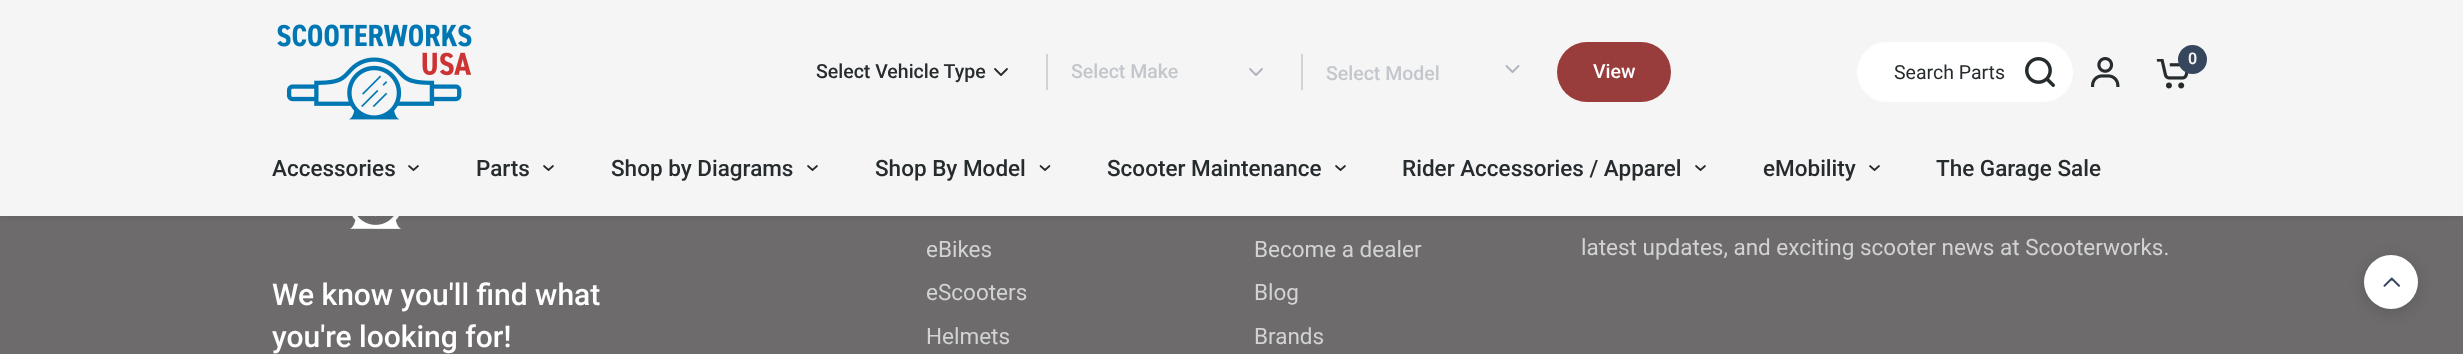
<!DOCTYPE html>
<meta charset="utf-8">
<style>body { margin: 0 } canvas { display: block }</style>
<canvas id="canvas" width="2463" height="354"></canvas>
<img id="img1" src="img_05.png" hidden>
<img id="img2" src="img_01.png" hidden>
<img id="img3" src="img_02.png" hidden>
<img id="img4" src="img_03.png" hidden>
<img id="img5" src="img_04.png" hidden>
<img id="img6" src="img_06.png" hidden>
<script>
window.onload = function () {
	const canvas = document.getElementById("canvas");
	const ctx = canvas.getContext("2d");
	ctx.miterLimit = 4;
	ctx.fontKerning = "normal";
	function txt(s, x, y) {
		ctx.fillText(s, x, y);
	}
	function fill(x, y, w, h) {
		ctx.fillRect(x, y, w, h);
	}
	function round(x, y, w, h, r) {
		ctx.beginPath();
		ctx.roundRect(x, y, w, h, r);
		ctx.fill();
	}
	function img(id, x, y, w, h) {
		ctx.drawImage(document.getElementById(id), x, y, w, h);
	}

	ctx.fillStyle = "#6D6B6B";
	fill(0, 0, 2463, 354);
	ctx.fillStyle = "#F5F5F5";
	fill(0, 0, 2463, 216);
	img("img1", 350, 216, 51, 13);
	ctx.save();
	ctx.beginPath();
	ctx.rect(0, 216, 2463, 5);
	ctx.clip();
	ctx.fillStyle = "rgba(0, 0, 0, 0.06)";
	ctx.filter = "blur(4px)";
	ctx.beginPath();
	ctx.rect(0, 3, 2463, 216);
	ctx.fill();
	ctx.filter = "none";
	ctx.restore();
	img("img2", 277, 24, 195, 96);
	ctx.fillStyle = "#D3D3D3";
	fill(1046, 54, 2, 36);
	ctx.beginPath();
	ctx.moveTo(995, 69);
	ctx.lineTo(1001, 75);
	ctx.lineTo(1007, 69);
	ctx.strokeStyle = "#262B2E";
	ctx.lineWidth = 1.8;
	ctx.lineCap = "round";
	ctx.lineJoin = "round";
	ctx.stroke();
	fill(1301, 54, 2, 36);
	ctx.beginPath();
	ctx.moveTo(1250, 69);
	ctx.lineTo(1256, 75);
	ctx.lineTo(1262, 69);
	ctx.strokeStyle = "#ADB3BB";
	ctx.stroke();
	ctx.beginPath();
	ctx.moveTo(1506.5, 66);
	ctx.lineTo(1512.5, 72);
	ctx.lineTo(1518.5, 66);
	ctx.stroke();
	ctx.fillStyle = "#983D3C";
	round(1557, 42, 114, 60, 30);
	ctx.fillStyle = "#FFFFFF";
	round(1857, 42, 216, 60, 30);
	img("img3", 2025, 57, 30, 30);
	img("img4", 2091, 57, 29, 30);
	img("img5", 2156, 59, 33, 30);
	ctx.fillStyle = "#36465D";
	ctx.beginPath();
	ctx.arc(2192.5, 59.5, 14.5, 0, Math.PI * 2);
	ctx.fill();
	ctx.beginPath();
	ctx.moveTo(418, 166);
	ctx.lineTo(413.5, 170);
	ctx.lineTo(409, 166);
	ctx.strokeStyle = "#262B2E";
	ctx.lineWidth = 1.7;
	ctx.stroke();
	ctx.beginPath();
	ctx.moveTo(553, 166);
	ctx.lineTo(548.5, 170);
	ctx.lineTo(544, 166);
	ctx.stroke();
	ctx.beginPath();
	ctx.moveTo(817, 166);
	ctx.lineTo(812.5, 170);
	ctx.lineTo(808, 166);
	ctx.stroke();
	ctx.beginPath();
	ctx.moveTo(1049.5, 166);
	ctx.lineTo(1045, 170);
	ctx.lineTo(1040.5, 166);
	ctx.stroke();
	ctx.beginPath();
	ctx.moveTo(1345, 166);
	ctx.lineTo(1340.5, 170);
	ctx.lineTo(1336, 166);
	ctx.stroke();
	ctx.beginPath();
	ctx.moveTo(1705, 166);
	ctx.lineTo(1700.5, 170);
	ctx.lineTo(1696, 166);
	ctx.stroke();
	ctx.beginPath();
	ctx.moveTo(1879, 166);
	ctx.lineTo(1874.5, 170);
	ctx.lineTo(1870, 166);
	ctx.stroke();
	ctx.fillStyle = "rgba(0, 0, 0, 0.15)";
	ctx.filter = "blur(7.5px)";
	ctx.beginPath();
	ctx.roundRect(2364, 258, 54, 54, 27);
	ctx.fill();
	ctx.filter = "none";
	ctx.fillStyle = "#FFFFFF";
	ctx.beginPath();
	ctx.arc(2391, 282, 27, 0, Math.PI * 2);
	ctx.fill();
	img("img6", 2383, 277, 17, 10);
	ctx.font = "500 19.5px Roboto";
	ctx.fillStyle = "#262B2E";
	txt("Select Vehicle Type", 816, 78);
	ctx.fillStyle = "#C3C7CC";
	txt("Select Make", 1071, 78);
	txt("Select Model", 1326, 80);
	ctx.fillStyle = "#FFFFFF";
	txt("View", 1593, 78);
	ctx.font = "19.5px Roboto";
	ctx.fillStyle = "#262B2E";
	txt("Search Parts", 1894, 79);
	ctx.font = "600 16px Roboto";
	ctx.fillStyle = "#F5F5F5";
	txt("0", 2188, 64);
	ctx.font = "500 22.5px Roboto";
	ctx.fillStyle = "#262B2E";
	txt("Accessories", 272, 176);
	txt("Parts", 476, 176);
	txt("Shop by Diagrams", 611, 176);
	txt("Shop By Model", 875, 176);
	txt("Scooter Maintenance", 1107, 176);
	txt("Rider Accessories / Apparel", 1402, 176);
	txt("eMobility", 1763, 176);
	txt("The Garage Sale", 1936, 176);
	ctx.font = "500 30px Roboto";
	ctx.fillStyle = "#FFFFFF";
	txt("We know you'll find what", 272, 305);
	txt("you're looking for!", 272, 347);
	ctx.font = "22.5px Roboto";
	ctx.fillStyle = "#D3D3D3";
	txt("eBikes", 926, 257);
	txt("eScooters", 926, 300);
	txt("Helmets", 926, 344);
	txt("Become a dealer", 1254, 257);
	txt("Blog", 1254, 300);
	txt("Brands", 1254, 344);
	txt("latest updates, and exciting scooter news at Scooterworks.", 1581, 255);
};
</script>
